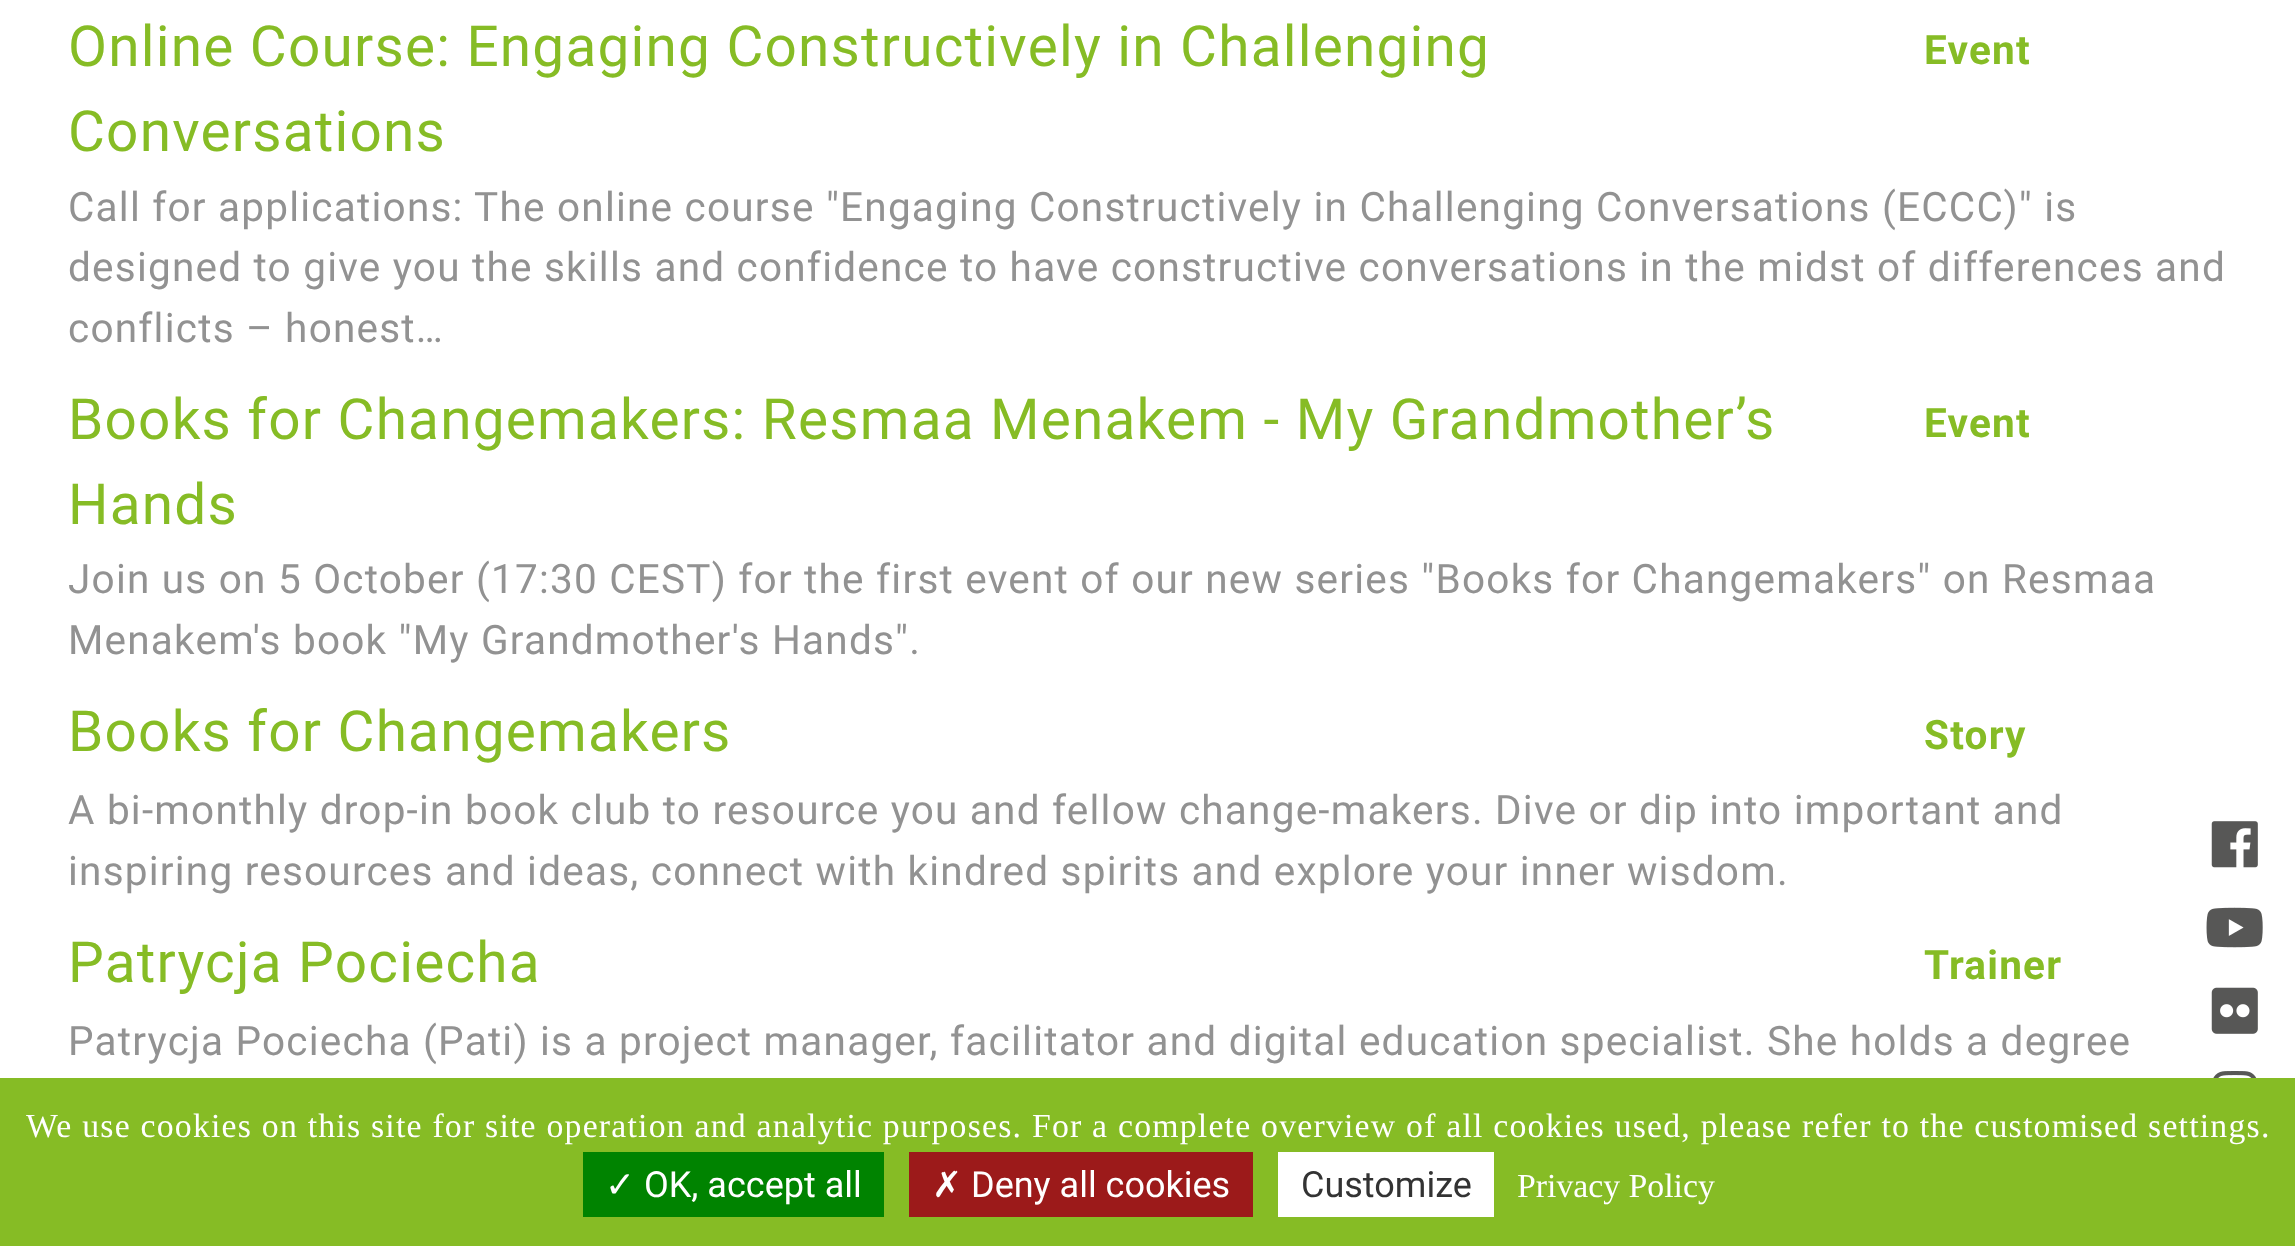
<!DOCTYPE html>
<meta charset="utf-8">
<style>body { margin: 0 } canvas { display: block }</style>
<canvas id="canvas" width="2295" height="1246"></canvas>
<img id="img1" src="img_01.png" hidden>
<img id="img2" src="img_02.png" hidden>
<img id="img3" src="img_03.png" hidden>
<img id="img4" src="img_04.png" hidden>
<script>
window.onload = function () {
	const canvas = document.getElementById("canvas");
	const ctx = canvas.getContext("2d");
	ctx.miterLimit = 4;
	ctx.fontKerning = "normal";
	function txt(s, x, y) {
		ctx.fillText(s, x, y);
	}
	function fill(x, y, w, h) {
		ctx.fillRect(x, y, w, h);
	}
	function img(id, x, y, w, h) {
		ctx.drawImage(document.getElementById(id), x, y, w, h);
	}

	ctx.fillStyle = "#FFFFFF";
	fill(0, 0, 2295, 1246);
	img("img1", 2211, 821, 47, 47);
	img("img2", 2206, 907, 57, 41);
	img("img3", 2211, 987, 47, 47);
	img("img4", 2213, 1071, 44, 7);
	ctx.fillStyle = "#86BC25";
	fill(0, 1078, 2295, 168);
	ctx.fillStyle = "#008300";
	fill(583, 1152, 301, 65);
	ctx.fillStyle = "#9C1A1A";
	fill(909, 1152, 344, 65);
	ctx.fillStyle = "#FFFFFF";
	fill(1278, 1152, 216, 65);
	ctx.letterSpacing = "1.22px";
	ctx.font = "56.7px Roboto";
	ctx.fillStyle = "#86BC25";
	txt("Online Course: Engaging Constructively in Challenging", 68, 66);
	txt("Conversations", 68, 151);
	ctx.font = "bold 40.5px Roboto";
	txt("Event", 1924, 64);
	ctx.font = "40.5px Roboto";
	ctx.fillStyle = "#929292";
	txt("Call for applications: The online course \"Engaging Constructively in Challenging Conversations (ECCC)\" is", 68, 221);
	txt("designed to give you the skills and confidence to have constructive conversations in the midst of differences and", 68, 281);
	txt("conflicts – honest…", 68, 342);
	ctx.font = "56.7px Roboto";
	ctx.fillStyle = "#86BC25";
	txt("Books for Changemakers: Resmaa Menakem - My Grandmother’s", 68, 439);
	txt("Hands", 68, 524);
	ctx.font = "bold 40.5px Roboto";
	txt("Event", 1924, 437);
	ctx.font = "40.5px Roboto";
	ctx.fillStyle = "#929292";
	txt("Join us on 5 October (17:30 CEST) for the first event of our new series \"Books for Changemakers\" on Resmaa", 68, 593);
	txt("Menakem's book \"My Grandmother's Hands\".", 68, 654);
	ctx.font = "56.7px Roboto";
	ctx.fillStyle = "#86BC25";
	txt("Books for Changemakers", 68, 751);
	ctx.font = "bold 40.5px Roboto";
	txt("Story", 1924, 749);
	ctx.font = "40.5px Roboto";
	ctx.fillStyle = "#929292";
	txt("A bi-monthly drop-in book club to resource you and fellow change-makers. Dive or dip into important and", 68, 824);
	txt("inspiring resources and ideas, connect with kindred spirits and explore your inner wisdom.", 68, 885);
	ctx.font = "56.7px Roboto";
	ctx.fillStyle = "#86BC25";
	txt("Patrycja Pociecha", 68, 982);
	ctx.font = "bold 40.5px Roboto";
	txt("Trainer", 1924, 979);
	ctx.font = "40.5px Roboto";
	ctx.fillStyle = "#929292";
	txt("Patrycja Pociecha (Pati) is a project manager, facilitator and digital education specialist. She holds a degree", 68, 1055);
	ctx.font = "33.75px Liberation Serif";
	ctx.fillStyle = "#FFFFFF";
	txt("We use cookies on this site for site operation and analytic purposes. For a complete overview of all cookies used, please refer to the customised settings.", 26, 1137);
	ctx.letterSpacing = "0px";
	ctx.font = "36px DejaVu Sans";
	txt("✓", 605, 1197);
	ctx.font = "36px Roboto";
	txt("OK, accept all", 644, 1197);
	ctx.font = "36px DejaVu Sans";
	txt("✗", 932, 1197);
	ctx.font = "36px Roboto";
	txt("Deny all cookies", 971, 1197);
	ctx.fillStyle = "#333333";
	txt("Customize", 1301, 1197);
	ctx.font = "33.75px Liberation Serif";
	ctx.fillStyle = "#FFFFFF";
	txt("Privacy Policy", 1517, 1197);
};
</script>
